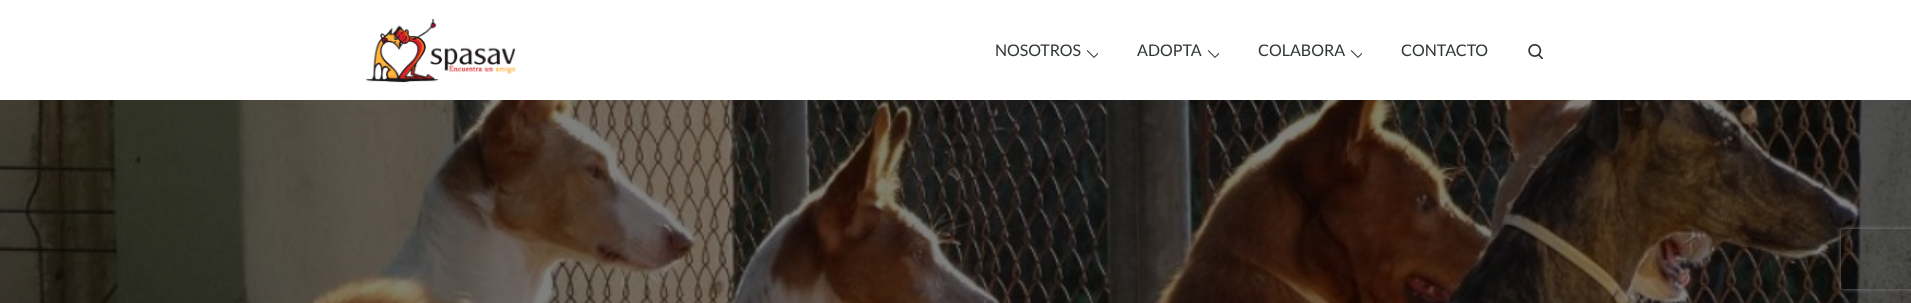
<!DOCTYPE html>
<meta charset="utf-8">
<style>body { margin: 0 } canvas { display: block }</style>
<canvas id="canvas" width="1911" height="303"></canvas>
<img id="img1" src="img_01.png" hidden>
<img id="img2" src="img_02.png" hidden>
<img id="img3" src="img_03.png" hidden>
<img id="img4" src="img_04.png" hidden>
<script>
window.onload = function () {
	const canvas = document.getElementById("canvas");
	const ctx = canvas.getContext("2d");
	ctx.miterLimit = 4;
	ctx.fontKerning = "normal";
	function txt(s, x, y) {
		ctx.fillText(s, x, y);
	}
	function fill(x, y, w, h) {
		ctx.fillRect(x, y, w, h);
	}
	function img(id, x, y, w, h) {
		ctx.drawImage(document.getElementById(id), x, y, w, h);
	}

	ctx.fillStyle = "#FFFFFF";
	fill(0, 0, 1911, 303);
	img("img1", 366, 19, 150, 64);
	img("img2", 1086, 50, 12, 8);
	img("img2", 1207, 50, 12, 8);
	img("img2", 1350, 50, 12, 8);
	img("img3", 1528, 44, 15, 15);
	img("img4", 0, 100, 1911, 203);
	ctx.save();
	ctx.beginPath();
	ctx.moveTo(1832, 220);
	ctx.lineTo(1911, 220);
	ctx.lineTo(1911, 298);
	ctx.lineTo(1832, 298);
	ctx.closePath();
	ctx.moveTo(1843, 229);
	ctx.lineTo(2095, 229);
	ctx.bezierCurveTo(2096, 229, 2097, 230, 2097, 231);
	ctx.lineTo(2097, 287);
	ctx.bezierCurveTo(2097, 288, 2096, 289, 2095, 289);
	ctx.lineTo(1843, 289);
	ctx.bezierCurveTo(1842, 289, 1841, 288, 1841, 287);
	ctx.lineTo(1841, 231);
	ctx.bezierCurveTo(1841, 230, 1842, 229, 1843, 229);
	ctx.closePath();
	ctx.clip("evenodd");
	ctx.fillStyle = "#808080";
	ctx.filter = "blur(2.5px)";
	ctx.beginPath();
	ctx.roundRect(1841, 229, 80, 60, 2);
	ctx.fill();
	ctx.filter = "none";
	ctx.restore();
	ctx.font = "16px Lato";
	ctx.fillStyle = "#2F3633";
	txt("NOSOTROS", 995, 56);
	txt("ADOPTA", 1137, 56);
	txt("COLABORA", 1258, 56);
	txt("CONTACTO", 1401, 56);
};
</script>
